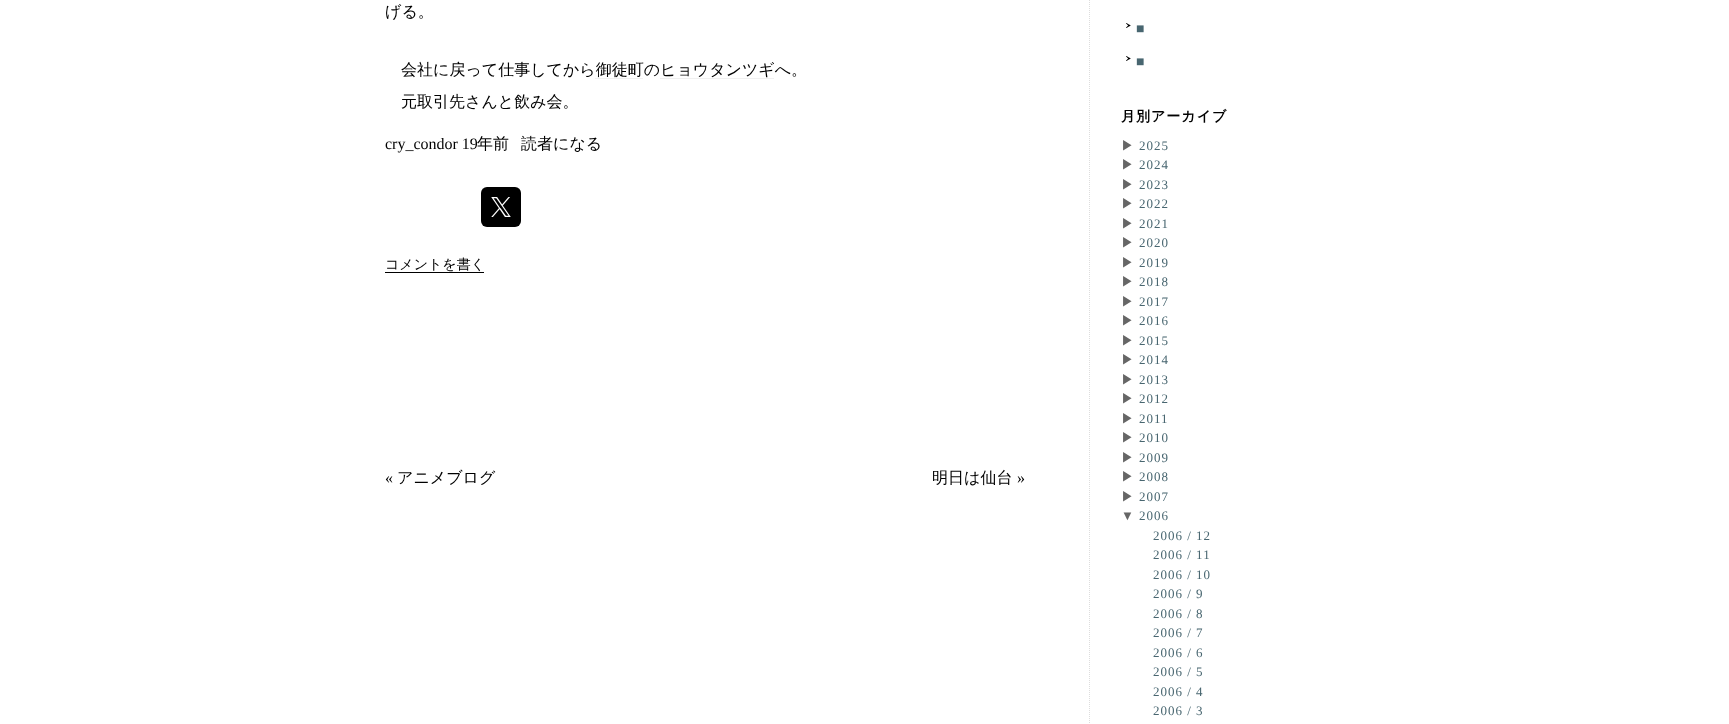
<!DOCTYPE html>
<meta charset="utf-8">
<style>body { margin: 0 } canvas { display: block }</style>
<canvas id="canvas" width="1729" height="724"></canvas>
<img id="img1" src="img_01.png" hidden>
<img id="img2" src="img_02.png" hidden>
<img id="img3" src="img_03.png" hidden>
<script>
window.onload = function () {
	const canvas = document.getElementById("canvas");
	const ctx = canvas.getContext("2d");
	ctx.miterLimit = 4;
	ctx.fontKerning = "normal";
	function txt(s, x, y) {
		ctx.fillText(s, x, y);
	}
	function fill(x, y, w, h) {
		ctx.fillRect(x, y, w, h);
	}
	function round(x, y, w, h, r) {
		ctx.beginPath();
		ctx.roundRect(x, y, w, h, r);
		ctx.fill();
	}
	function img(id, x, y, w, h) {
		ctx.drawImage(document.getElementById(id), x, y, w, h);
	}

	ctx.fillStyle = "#FFFFFF";
	fill(0, 0, 1729, 724);
	img("img1", 1089, 0, 1, 723);
	ctx.fillStyle = "#F0F0F0";
	fill(595, 78, 48, 1);
	fill(660, 78, 114, 1);
	ctx.fillStyle = "#000000";
	round(481, 187, 40, 40, 6);
	img("img2", 491, 197, 20, 20);
	fill(385, 272, 99, 1);
	img("img3", 1126, 23, 5, 5);
	img("img3", 1126, 56, 5, 5);
	ctx.font = "500 16px WenQuanYi Zen Hei";
	txt("げる。", 385, 17);
	txt("会社に戻って仕事してから御徒町のヒョウタンツギへ。", 401, 75);
	txt("元取引先さんと飲み会。", 401, 107);
	ctx.font = "16px Liberation Serif";
	txt("cry_condor 19", 385, 149);
	ctx.font = "500 16px WenQuanYi Zen Hei";
	txt("年前", 477, 149);
	txt("読者になる", 521, 149);
	ctx.font = "500 14px WenQuanYi Zen Hei";
	txt("コメントを書く", 385, 269);
	ctx.font = "16px Liberation Serif";
	txt("«", 385, 483);
	ctx.font = "500 16px WenQuanYi Zen Hei";
	txt("アニメブログ", 397, 483);
	txt("明日は仙台", 932, 483);
	ctx.font = "16px Liberation Serif";
	txt("»", 1017, 483);
	ctx.letterSpacing = "1px";
	ctx.font = "14px Liberation Serif";
	ctx.fillStyle = "#486670";
	txt("■", 1136, 33);
	txt("■", 1136, 66);
	ctx.font = "bold 14px WenQuanYi Zen Hei";
	ctx.fillStyle = "#000000";
	txt("月別アーカイブ", 1121, 121);
	ctx.font = "500 13px WenQuanYi Zen Hei";
	ctx.fillStyle = "#666666";
	txt("▶", 1121, 150);
	ctx.font = "13px Liberation Serif";
	ctx.fillStyle = "#486670";
	txt("2025", 1139, 150);
	ctx.font = "500 13px WenQuanYi Zen Hei";
	ctx.fillStyle = "#666666";
	txt("▶", 1121, 169);
	ctx.font = "13px Liberation Serif";
	ctx.fillStyle = "#486670";
	txt("2024", 1139, 169);
	ctx.font = "500 13px WenQuanYi Zen Hei";
	ctx.fillStyle = "#666666";
	txt("▶", 1121, 189);
	ctx.font = "13px Liberation Serif";
	ctx.fillStyle = "#486670";
	txt("2023", 1139, 189);
	ctx.font = "500 13px WenQuanYi Zen Hei";
	ctx.fillStyle = "#666666";
	txt("▶", 1121, 208);
	ctx.font = "13px Liberation Serif";
	ctx.fillStyle = "#486670";
	txt("2022", 1139, 208);
	ctx.font = "500 13px WenQuanYi Zen Hei";
	ctx.fillStyle = "#666666";
	txt("▶", 1121, 228);
	ctx.font = "13px Liberation Serif";
	ctx.fillStyle = "#486670";
	txt("2021", 1139, 228);
	ctx.font = "500 13px WenQuanYi Zen Hei";
	ctx.fillStyle = "#666666";
	txt("▶", 1121, 247);
	ctx.font = "13px Liberation Serif";
	ctx.fillStyle = "#486670";
	txt("2020", 1139, 247);
	ctx.font = "500 13px WenQuanYi Zen Hei";
	ctx.fillStyle = "#666666";
	txt("▶", 1121, 267);
	ctx.font = "13px Liberation Serif";
	ctx.fillStyle = "#486670";
	txt("2019", 1139, 267);
	ctx.font = "500 13px WenQuanYi Zen Hei";
	ctx.fillStyle = "#666666";
	txt("▶", 1121, 286);
	ctx.font = "13px Liberation Serif";
	ctx.fillStyle = "#486670";
	txt("2018", 1139, 286);
	ctx.font = "500 13px WenQuanYi Zen Hei";
	ctx.fillStyle = "#666666";
	txt("▶", 1121, 306);
	ctx.font = "13px Liberation Serif";
	ctx.fillStyle = "#486670";
	txt("2017", 1139, 306);
	ctx.font = "500 13px WenQuanYi Zen Hei";
	ctx.fillStyle = "#666666";
	txt("▶", 1121, 325);
	ctx.font = "13px Liberation Serif";
	ctx.fillStyle = "#486670";
	txt("2016", 1139, 325);
	ctx.font = "500 13px WenQuanYi Zen Hei";
	ctx.fillStyle = "#666666";
	txt("▶", 1121, 345);
	ctx.font = "13px Liberation Serif";
	ctx.fillStyle = "#486670";
	txt("2015", 1139, 345);
	ctx.font = "500 13px WenQuanYi Zen Hei";
	ctx.fillStyle = "#666666";
	txt("▶", 1121, 364);
	ctx.font = "13px Liberation Serif";
	ctx.fillStyle = "#486670";
	txt("2014", 1139, 364);
	ctx.font = "500 13px WenQuanYi Zen Hei";
	ctx.fillStyle = "#666666";
	txt("▶", 1121, 384);
	ctx.font = "13px Liberation Serif";
	ctx.fillStyle = "#486670";
	txt("2013", 1139, 384);
	ctx.font = "500 13px WenQuanYi Zen Hei";
	ctx.fillStyle = "#666666";
	txt("▶", 1121, 403);
	ctx.font = "13px Liberation Serif";
	ctx.fillStyle = "#486670";
	txt("2012", 1139, 403);
	ctx.font = "500 13px WenQuanYi Zen Hei";
	ctx.fillStyle = "#666666";
	txt("▶", 1121, 423);
	ctx.font = "13px Liberation Serif";
	ctx.fillStyle = "#486670";
	txt("2011", 1139, 423);
	ctx.font = "500 13px WenQuanYi Zen Hei";
	ctx.fillStyle = "#666666";
	txt("▶", 1121, 442);
	ctx.font = "13px Liberation Serif";
	ctx.fillStyle = "#486670";
	txt("2010", 1139, 442);
	ctx.font = "500 13px WenQuanYi Zen Hei";
	ctx.fillStyle = "#666666";
	txt("▶", 1121, 462);
	ctx.font = "13px Liberation Serif";
	ctx.fillStyle = "#486670";
	txt("2009", 1139, 462);
	ctx.font = "500 13px WenQuanYi Zen Hei";
	ctx.fillStyle = "#666666";
	txt("▶", 1121, 481);
	ctx.font = "13px Liberation Serif";
	ctx.fillStyle = "#486670";
	txt("2008", 1139, 481);
	ctx.font = "500 13px WenQuanYi Zen Hei";
	ctx.fillStyle = "#666666";
	txt("▶", 1121, 501);
	ctx.font = "13px Liberation Serif";
	ctx.fillStyle = "#486670";
	txt("2007", 1139, 501);
	ctx.fillStyle = "#666666";
	txt("▼", 1121, 520);
	ctx.fillStyle = "#486670";
	txt("2006", 1139, 520);
	txt("2006 / 12", 1153, 540);
	txt("2006 / 11", 1153, 559);
	txt("2006 / 10", 1153, 579);
	txt("2006 / 9", 1153, 598);
	txt("2006 / 8", 1153, 618);
	txt("2006 / 7", 1153, 637);
	txt("2006 / 6", 1153, 657);
	txt("2006 / 5", 1153, 676);
	txt("2006 / 4", 1153, 696);
	txt("2006 / 3", 1153, 715);
};
</script>
